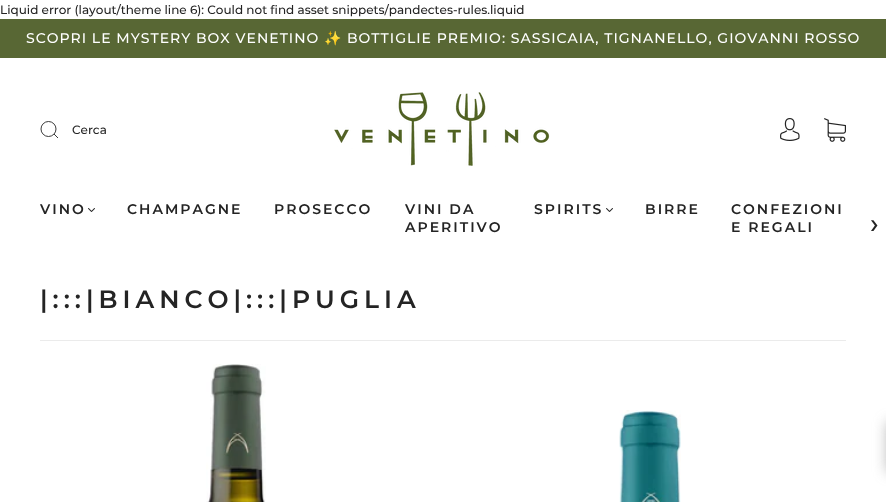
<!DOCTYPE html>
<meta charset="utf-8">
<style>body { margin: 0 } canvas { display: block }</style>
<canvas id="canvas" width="886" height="502"></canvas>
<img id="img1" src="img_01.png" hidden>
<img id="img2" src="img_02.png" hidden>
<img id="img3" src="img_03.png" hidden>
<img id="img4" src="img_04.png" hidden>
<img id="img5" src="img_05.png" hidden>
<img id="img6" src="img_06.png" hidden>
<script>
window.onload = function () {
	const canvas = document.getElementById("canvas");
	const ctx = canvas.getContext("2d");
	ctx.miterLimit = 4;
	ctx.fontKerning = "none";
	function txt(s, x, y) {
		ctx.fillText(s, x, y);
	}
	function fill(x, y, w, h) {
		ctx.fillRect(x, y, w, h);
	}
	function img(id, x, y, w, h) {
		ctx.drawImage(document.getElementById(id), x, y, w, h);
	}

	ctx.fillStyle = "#FFFFFF";
	fill(0, 0, 886, 502);
	ctx.fillStyle = "#586734";
	fill(0, 19, 886, 39);
	ctx.beginPath();
	ctx.arc(48.5, 129, 7.5, 0, Math.PI * 2);
	ctx.strokeStyle = "#242424";
	ctx.lineWidth = 0.9;
	ctx.stroke();
	ctx.save();
	ctx.beginPath();
	ctx.rect(40, 121, 18, 17);
	ctx.clip();
	ctx.beginPath();
	ctx.moveTo(54, 134);
	ctx.lineTo(59.5, 139.5);
	ctx.stroke();
	ctx.restore();
	img("img1", 334, 92, 216, 74);
	img("img2", 780, 118, 20, 23);
	img("img3", 824, 118, 22, 24);
	img("img4", 88, 208, 7, 4);
	img("img4", 606, 208, 7, 4);
	ctx.fillStyle = "#EBEBEB";
	fill(40, 340, 806, 1);
	img("img5", 206, 364, 60, 138);
	img("img6", 619, 410, 62, 92);
	ctx.fillStyle = "rgba(117, 117, 117, 0.5)";
	ctx.filter = "blur(7px)";
	ctx.beginPath();
	ctx.rect(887, 422, 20, 50);
	ctx.fill();
	ctx.filter = "none";
	ctx.font = "500 12px Montserrat";
	ctx.fillStyle = "#242424";
	txt("Liquid error (layout/theme line 6): Could not find asset snippets/pandectes-rules.liquid", 0, 14);
	ctx.letterSpacing = "1px";
	ctx.font = "500 14px Montserrat";
	ctx.fillStyle = "#FFFFFF";
	txt("SCOPRI LE MYSTERY BOX VENETINO", 26, 43);
	ctx.font = "14px Noto Color Emoji";
	txt("✨", 324, 43);
	ctx.font = "500 14px Montserrat";
	txt("BOTTIGLIE PREMIO: SASSICAIA, TIGNANELLO, GIOVANNI ROSSO", 347, 43);
	ctx.letterSpacing = "0px";
	ctx.font = "500 12px Montserrat";
	ctx.fillStyle = "#242424";
	txt("Cerca", 72, 134);
	ctx.letterSpacing = "2px";
	ctx.font = "600 14px Montserrat";
	txt("VINO", 40, 214);
	txt("CHAMPAGNE", 127, 214);
	txt("PROSECCO", 274, 214);
	txt("VINI DA", 405, 214);
	txt("APERITIVO", 405, 232);
	txt("SPIRITS", 534, 214);
	txt("BIRRE", 645, 214);
	txt("CONFEZIONI", 731, 214);
	txt("E REGALI", 731, 232);
	ctx.letterSpacing = "0px";
	ctx.font = "500 28px Montserrat";
	txt("›", 870, 233);
	ctx.letterSpacing = "5px";
	ctx.font = "600 25px Montserrat";
	txt("|:::|BIANCO|:::|PUGLIA", 40, 308);
};
</script>
